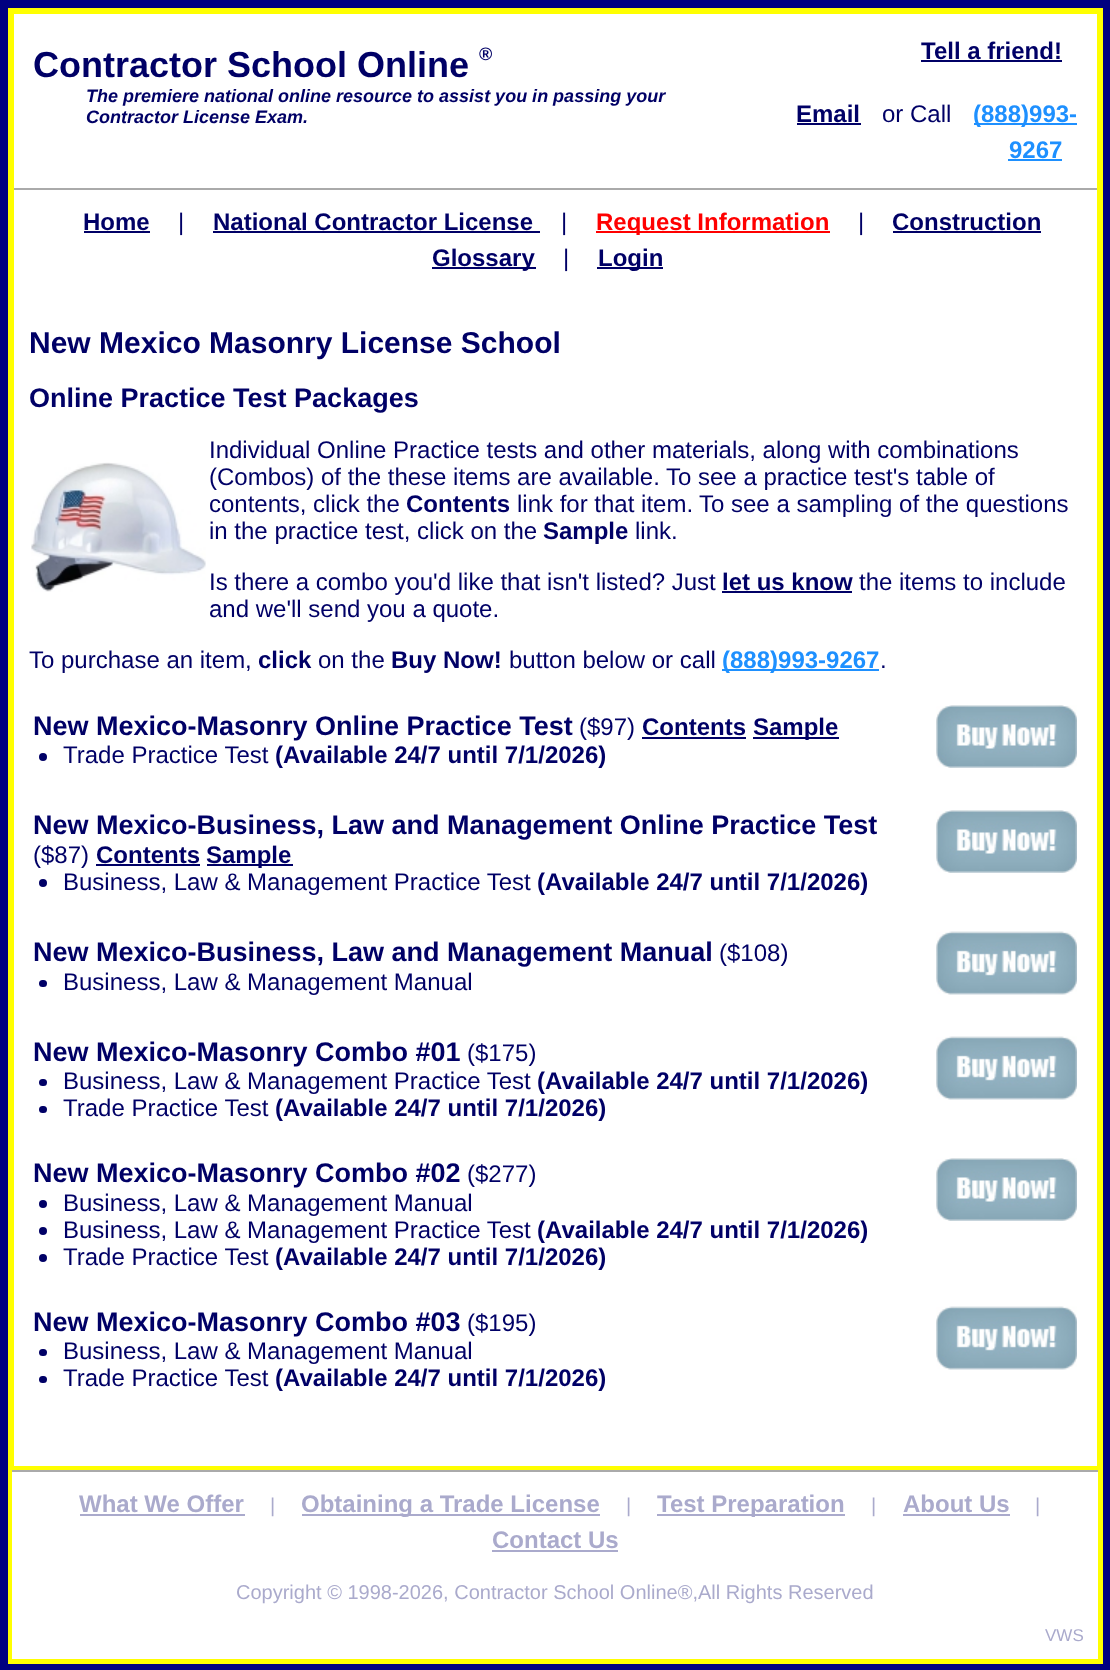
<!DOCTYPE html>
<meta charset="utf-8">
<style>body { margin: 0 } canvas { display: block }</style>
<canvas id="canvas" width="1110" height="1670"></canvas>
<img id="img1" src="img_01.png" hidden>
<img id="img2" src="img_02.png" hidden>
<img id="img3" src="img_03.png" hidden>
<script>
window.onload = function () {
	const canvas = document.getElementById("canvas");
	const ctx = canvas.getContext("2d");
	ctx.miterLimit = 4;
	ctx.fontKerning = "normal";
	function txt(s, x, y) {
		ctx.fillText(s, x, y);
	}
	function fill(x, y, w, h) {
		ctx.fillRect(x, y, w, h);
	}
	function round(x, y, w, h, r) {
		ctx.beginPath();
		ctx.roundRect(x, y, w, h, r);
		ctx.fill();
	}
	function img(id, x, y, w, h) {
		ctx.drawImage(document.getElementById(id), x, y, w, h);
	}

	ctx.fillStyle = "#000080";
	fill(0, 0, 1110, 1670);
	ctx.fillStyle = "#FFFF00";
	fill(8, 8, 1095, 1656);
	ctx.fillStyle = "#FFFFFF";
	fill(14, 14, 1083, 1452);
	ctx.fillStyle = "#000066";
	fill(921, 60, 141, 2);
	fill(797, 123, 64, 2);
	ctx.fillStyle = "#1E90FF";
	fill(974, 123, 103, 2);
	fill(1008, 159, 54, 2);
	ctx.fillStyle = "#AAAAAA";
	fill(14, 188, 1083, 2);
	ctx.fillStyle = "#000066";
	fill(84, 231, 66, 2);
	fill(213, 231, 327, 2);
	ctx.fillStyle = "#FF0000";
	fill(596, 231, 234, 2);
	ctx.fillStyle = "#000066";
	fill(893, 231, 148, 2);
	fill(432, 267, 104, 2);
	fill(597, 267, 66, 2);
	img("img1", 31, 462, 175, 130);
	fill(722, 591, 130, 2);
	ctx.fillStyle = "#1E90FF";
	fill(722, 669, 157, 2);
	ctx.fillStyle = "#000066";
	fill(642, 737, 104, 2);
	fill(753, 737, 86, 2);
	ctx.beginPath();
	ctx.arc(43, 757, 4, 0, Math.PI * 2);
	ctx.fill();
	img("img2", 936, 705, 141, 63);
	fill(96, 864, 104, 2);
	fill(207, 864, 86, 2);
	ctx.beginPath();
	ctx.arc(43, 883, 4, 0, Math.PI * 2);
	ctx.fill();
	img("img2", 936, 810, 141, 63);
	round(39, 980, 8, 7, 3.5);
	img("img3", 936, 931, 141, 64);
	round(39, 1079, 8, 7, 3.5);
	round(39, 1106, 8, 7, 3.5);
	img("img3", 936, 1036, 141, 64);
	ctx.beginPath();
	ctx.arc(43, 1204, 4, 0, Math.PI * 2);
	ctx.fill();
	ctx.beginPath();
	ctx.arc(43, 1231, 4, 0, Math.PI * 2);
	ctx.fill();
	ctx.beginPath();
	ctx.arc(43, 1258, 4, 0, Math.PI * 2);
	ctx.fill();
	img("img2", 936, 1158, 141, 63);
	round(39, 1349, 8, 7, 3.5);
	round(39, 1376, 8, 7, 3.5);
	img("img3", 936, 1306, 141, 64);
	ctx.fillStyle = "#FFFFFF";
	fill(12, 1472, 1086, 187);
	ctx.fillStyle = "#AAAAAA";
	fill(12, 1470, 1086, 2);
	ctx.fillStyle = "#AAAACC";
	fill(80, 1514, 165, 2);
	fill(302, 1514, 298, 2);
	fill(657, 1514, 188, 2);
	fill(903, 1514, 107, 2);
	fill(492, 1550, 126, 2);
	ctx.font = "bold 18px Liberation Sans";
	ctx.fillStyle = "#000066";
	txt("®", 479, 60);
	ctx.font = "italic bold 18px Liberation Sans";
	txt("The premiere national online resource to assist you in passing your", 86, 102);
	txt("Contractor License Exam.", 86, 123);
	ctx.font = "bold 36px Liberation Sans";
	txt("Contractor School Online", 33, 77);
	ctx.font = "bold 24px Liberation Sans";
	txt("Tell a friend!", 921, 59);
	txt("Email", 796, 122);
	ctx.font = "24px Liberation Sans";
	txt("or Call", 882, 122);
	ctx.font = "bold 24px Liberation Sans";
	ctx.fillStyle = "#1E90FF";
	txt("(888)993-", 973, 122);
	txt("9267", 1009, 158);
	ctx.fillStyle = "#000066";
	txt("Home", 83, 230);
	ctx.font = "24px Liberation Sans";
	txt("|", 178, 230);
	ctx.font = "bold 24px Liberation Sans";
	txt("National Contractor License", 213, 230);
	ctx.font = "24px Liberation Sans";
	txt("|", 561, 230);
	ctx.font = "bold 24px Liberation Sans";
	ctx.fillStyle = "#FF0000";
	txt("Request Information", 596, 230);
	ctx.font = "24px Liberation Sans";
	ctx.fillStyle = "#000066";
	txt("|", 858, 230);
	ctx.font = "bold 24px Liberation Sans";
	txt("Construction", 892, 230);
	txt("Glossary", 432, 266);
	ctx.font = "24px Liberation Sans";
	txt("|", 563, 266);
	ctx.font = "bold 24px Liberation Sans";
	txt("Login", 598, 266);
	ctx.font = "bold 30px Liberation Sans";
	txt("New Mexico Masonry License School", 29, 353);
	ctx.font = "bold 27px Liberation Sans";
	txt("Online Practice Test Packages", 29, 407);
	ctx.font = "24px Liberation Sans";
	txt("Individual Online Practice tests and other materials, along with combinations", 209, 458);
	txt("(Combos) of the these items are available.", 209, 485);
	txt("To see a practice test's table of", 666, 485);
	txt("contents, click the", 209, 512);
	ctx.font = "bold 24px Liberation Sans";
	txt("Contents", 406, 512);
	ctx.font = "24px Liberation Sans";
	txt("link for that item.", 517, 512);
	txt("To see a sampling of the questions", 699, 512);
	txt("in the practice test, click on the", 209, 539);
	ctx.font = "bold 24px Liberation Sans";
	txt("Sample", 543, 539);
	ctx.font = "24px Liberation Sans";
	txt("link.", 635, 539);
	txt("Is there a combo you'd like that isn't listed? Just", 209, 590);
	ctx.font = "bold 24px Liberation Sans";
	txt("let us know", 722, 590);
	ctx.font = "24px Liberation Sans";
	txt("the items to include", 859, 590);
	txt("and we'll send you a quote.", 209, 617);
	txt("To purchase an item,", 29, 668);
	ctx.font = "bold 24px Liberation Sans";
	txt("click", 258, 668);
	ctx.font = "24px Liberation Sans";
	txt("on the", 318, 668);
	ctx.font = "bold 24px Liberation Sans";
	txt("Buy Now!", 391, 668);
	ctx.font = "24px Liberation Sans";
	txt("button below or call", 509, 668);
	ctx.font = "bold 24px Liberation Sans";
	ctx.fillStyle = "#1E90FF";
	txt("(888)993-9267", 722, 668);
	ctx.font = "24px Liberation Sans";
	ctx.fillStyle = "#000066";
	txt(".", 880, 668);
	ctx.font = "bold 27px Liberation Sans";
	txt("New Mexico-Masonry Online Practice Test", 33, 735);
	ctx.font = "24px Liberation Sans";
	txt("($97)", 579, 735);
	ctx.font = "bold 24px Liberation Sans";
	txt("Contents", 642, 735);
	txt("Sample", 753, 735);
	ctx.font = "24px Liberation Sans";
	txt("Trade Practice Test", 63, 763);
	ctx.font = "bold 24px Liberation Sans";
	txt("(Available 24/7 until 7/1/2026)", 275, 763);
	ctx.font = "bold 27px Liberation Sans";
	txt("New Mexico-Business, Law and Management Online Practice Test", 33, 834);
	ctx.font = "24px Liberation Sans";
	txt("($87)", 33, 863);
	ctx.font = "bold 24px Liberation Sans";
	txt("Contents", 96, 863);
	txt("Sample", 206, 863);
	ctx.font = "24px Liberation Sans";
	txt("Business, Law & Management Practice Test", 63, 890);
	ctx.font = "bold 24px Liberation Sans";
	txt("(Available 24/7 until 7/1/2026)", 537, 890);
	ctx.font = "bold 27px Liberation Sans";
	txt("New Mexico-Business, Law and Management Manual", 33, 961);
	ctx.font = "24px Liberation Sans";
	txt("($108)", 719, 961);
	txt("Business, Law & Management Manual", 63, 990);
	ctx.font = "bold 27px Liberation Sans";
	txt("New Mexico-Masonry Combo #01", 33, 1061);
	ctx.font = "24px Liberation Sans";
	txt("($175)", 467, 1061);
	txt("Business, Law & Management Practice Test", 63, 1089);
	ctx.font = "bold 24px Liberation Sans";
	txt("(Available 24/7 until 7/1/2026)", 537, 1089);
	ctx.font = "24px Liberation Sans";
	txt("Trade Practice Test", 63, 1116);
	ctx.font = "bold 24px Liberation Sans";
	txt("(Available 24/7 until 7/1/2026)", 275, 1116);
	ctx.font = "bold 27px Liberation Sans";
	txt("New Mexico-Masonry Combo #02", 33, 1182);
	ctx.font = "24px Liberation Sans";
	txt("($277)", 467, 1182);
	txt("Business, Law & Management Manual", 63, 1211);
	txt("Business, Law & Management Practice Test", 63, 1238);
	ctx.font = "bold 24px Liberation Sans";
	txt("(Available 24/7 until 7/1/2026)", 537, 1238);
	ctx.font = "24px Liberation Sans";
	txt("Trade Practice Test", 63, 1265);
	ctx.font = "bold 24px Liberation Sans";
	txt("(Available 24/7 until 7/1/2026)", 275, 1265);
	ctx.font = "bold 27px Liberation Sans";
	txt("New Mexico-Masonry Combo #03", 33, 1331);
	ctx.font = "24px Liberation Sans";
	txt("($195)", 467, 1331);
	txt("Business, Law & Management Manual", 63, 1359);
	txt("Trade Practice Test", 63, 1386);
	ctx.font = "bold 24px Liberation Sans";
	txt("(Available 24/7 until 7/1/2026)", 275, 1386);
	ctx.fillStyle = "#AAAACC";
	txt("What We Offer", 79, 1512);
	ctx.font = "20px Liberation Sans";
	txt("|", 270, 1512);
	ctx.font = "bold 24px Liberation Sans";
	txt("Obtaining a Trade License", 301, 1512);
	ctx.font = "20px Liberation Sans";
	txt("|", 626, 1512);
	ctx.font = "bold 24px Liberation Sans";
	txt("Test Preparation", 657, 1512);
	ctx.font = "20px Liberation Sans";
	txt("|", 871, 1512);
	ctx.font = "bold 24px Liberation Sans";
	txt("About Us", 903, 1512);
	ctx.font = "20px Liberation Sans";
	txt("|", 1035, 1512);
	ctx.font = "bold 24px Liberation Sans";
	txt("Contact Us", 492, 1548);
	ctx.font = "20px Liberation Sans";
	txt("Copyright © 1998-2026, Contractor School Online®,All Rights Reserved", 236, 1599);
	ctx.font = "17px Liberation Sans";
	txt("VWS", 1045, 1641);
};
</script>
